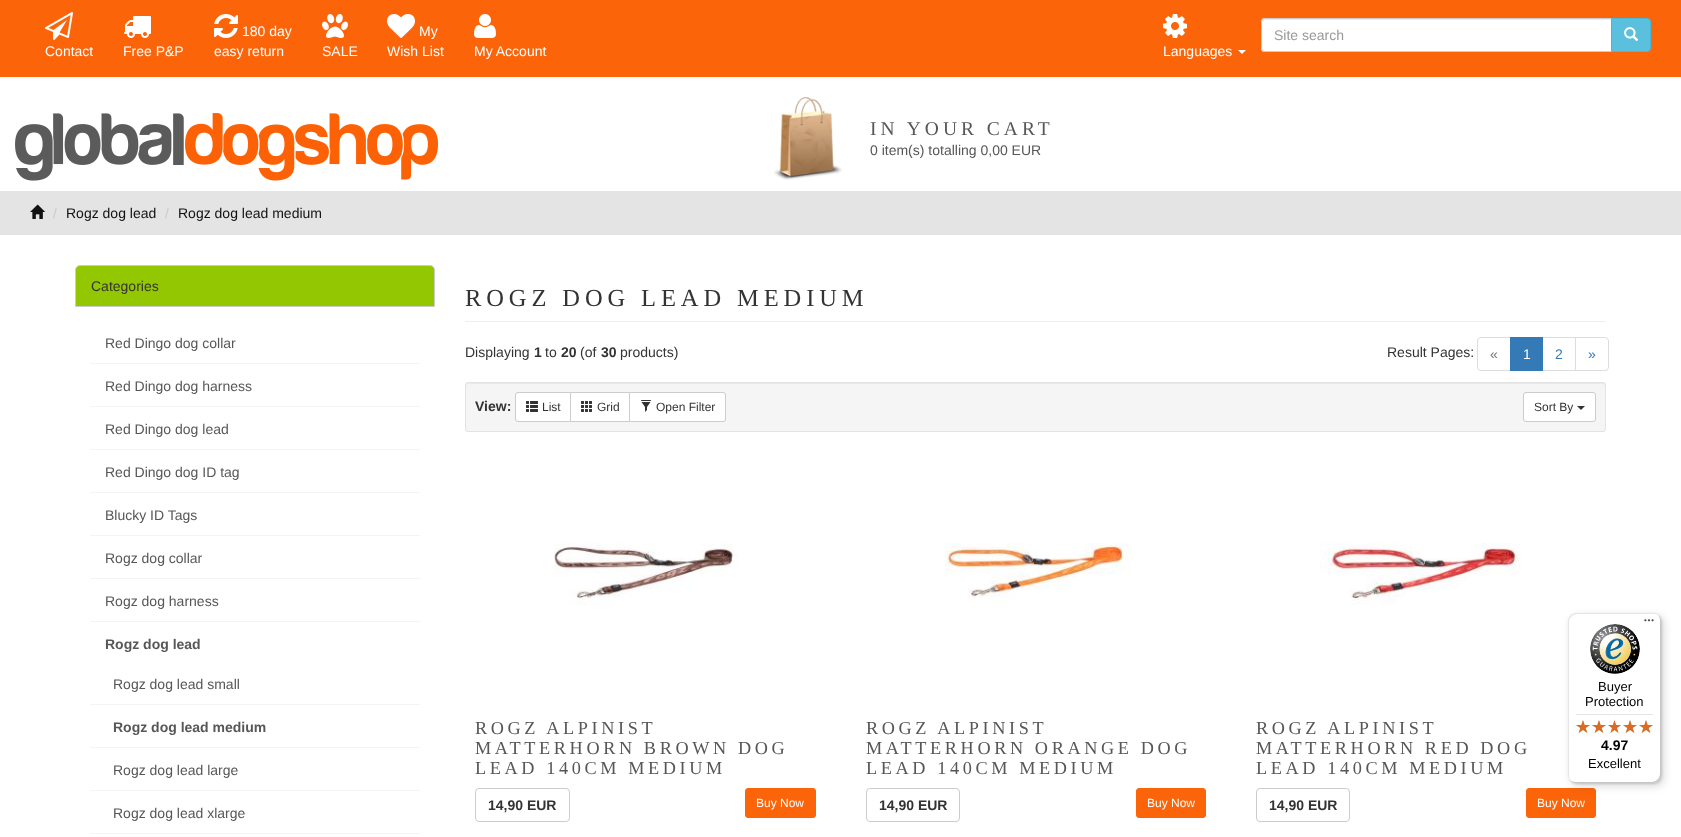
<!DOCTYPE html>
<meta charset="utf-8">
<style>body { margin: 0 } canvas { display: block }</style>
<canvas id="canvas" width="1681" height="837"></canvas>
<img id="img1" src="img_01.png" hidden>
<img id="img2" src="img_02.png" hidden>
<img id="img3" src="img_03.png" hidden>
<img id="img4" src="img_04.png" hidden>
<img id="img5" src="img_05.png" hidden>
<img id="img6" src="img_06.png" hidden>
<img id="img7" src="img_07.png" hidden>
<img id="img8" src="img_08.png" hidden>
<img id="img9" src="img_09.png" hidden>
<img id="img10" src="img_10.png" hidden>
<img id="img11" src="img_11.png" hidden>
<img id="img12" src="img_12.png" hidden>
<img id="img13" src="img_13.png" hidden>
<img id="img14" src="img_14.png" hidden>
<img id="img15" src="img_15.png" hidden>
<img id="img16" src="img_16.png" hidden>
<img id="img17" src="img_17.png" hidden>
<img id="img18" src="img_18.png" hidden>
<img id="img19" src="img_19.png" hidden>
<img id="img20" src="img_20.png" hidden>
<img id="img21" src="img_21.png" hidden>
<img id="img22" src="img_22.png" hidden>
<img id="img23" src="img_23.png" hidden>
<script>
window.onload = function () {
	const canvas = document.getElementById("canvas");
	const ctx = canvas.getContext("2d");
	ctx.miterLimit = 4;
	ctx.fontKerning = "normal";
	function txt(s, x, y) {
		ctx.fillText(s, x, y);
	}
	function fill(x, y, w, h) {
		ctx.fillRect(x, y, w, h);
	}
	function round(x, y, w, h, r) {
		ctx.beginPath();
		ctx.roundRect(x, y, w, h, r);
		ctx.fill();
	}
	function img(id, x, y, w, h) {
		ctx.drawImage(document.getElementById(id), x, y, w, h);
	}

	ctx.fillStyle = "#FFFFFF";
	fill(0, 0, 1681, 837);
	ctx.fillStyle = "#FC640A";
	fill(0, 0, 1681, 77);
	img("img1", 45, 12, 28, 28);
	img("img2", 124, 16, 27, 22);
	img("img3", 214, 14, 24, 24);
	img("img4", 322, 14, 26, 24);
	img("img5", 387, 14, 28, 24);
	img("img6", 474, 14, 22, 24);
	ctx.fillStyle = "#FFFFFF";
	ctx.beginPath();
	ctx.roundRect(1261, 18, 351, 34, [4, 0, 0, 4]);
	ctx.fill();
	ctx.fillStyle = "#ECECEC";
	ctx.beginPath();
	ctx.moveTo(1265, 20);
	ctx.lineTo(1611, 20);
	ctx.lineTo(1611, 19);
	ctx.lineTo(1265, 19);
	ctx.bezierCurveTo(1263, 19, 1262, 20, 1262, 22);
	ctx.lineTo(1262, 23);
	ctx.bezierCurveTo(1262, 21, 1263, 20, 1265, 20);
	ctx.closePath();
	ctx.fill();
	ctx.beginPath();
	ctx.roundRect(1261.5, 18.5, 350, 33, [3.5, 0, 0, 3.5]);
	ctx.strokeStyle = "#CCCCCC";
	ctx.stroke();
	ctx.fillStyle = "#5BC0DE";
	ctx.beginPath();
	ctx.roundRect(1611.5, 18.5, 39, 33, [0, 3.5, 3.5, 0]);
	ctx.fill();
	ctx.strokeStyle = "#46B8DA";
	ctx.stroke();
	img("img7", 1624, 27, 15, 14);
	img("img8", 1163, 14, 24, 24);
	ctx.fillStyle = "#FFFFFF";
	ctx.beginPath();
	ctx.moveTo(1238, 50);
	ctx.lineTo(1246, 50);
	ctx.lineTo(1242, 54);
	ctx.closePath();
	ctx.fill();
	img("img9", 15, 113, 423, 68);
	img("img10", 774, 97, 68, 83);
	ctx.fillStyle = "#E4E4E4";
	fill(0, 191, 1681, 44);
	img("img11", 30, 204, 15, 15);
	ctx.fillStyle = "#93C702";
	ctx.beginPath();
	ctx.roundRect(75.5, 265.5, 359, 41, [4.5, 4.5, 0, 0]);
	ctx.fill();
	ctx.strokeStyle = "#CCCCCC";
	ctx.stroke();
	ctx.fillStyle = "#F4F4F4";
	fill(90, 363, 330, 1);
	fill(90, 406, 330, 1);
	fill(90, 449, 330, 1);
	fill(90, 492, 330, 1);
	fill(90, 535, 330, 1);
	fill(90, 578, 330, 1);
	fill(90, 621, 330, 1);
	fill(90, 704, 330, 1);
	fill(90, 747, 330, 1);
	fill(90, 790, 330, 1);
	fill(90, 833, 330, 1);
	ctx.fillStyle = "#EEEEEE";
	fill(465, 321, 1141, 1);
	ctx.beginPath();
	ctx.roundRect(1477.5, 337.5, 33, 33, [3.5, 0, 0, 3.5]);
	ctx.strokeStyle = "#DDDDDD";
	ctx.stroke();
	ctx.strokeRect(1542.5, 337.5, 33, 33);
	ctx.fillStyle = "#337AB7";
	fill(1510, 337, 33, 34);
	ctx.fillStyle = "#FFFFFF";
	ctx.beginPath();
	ctx.roundRect(1575.5, 337.5, 33, 33, [0, 3.5, 3.5, 0]);
	ctx.fill();
	ctx.stroke();
	ctx.fillStyle = "#F5F5F5";
	round(465, 382, 1141, 50, 3);
	ctx.fillStyle = "#E9E9E9";
	ctx.beginPath();
	ctx.moveTo(468, 384);
	ctx.lineTo(1603, 384);
	ctx.bezierCurveTo(1604, 384, 1605, 385, 1605, 386);
	ctx.lineTo(1605, 384);
	ctx.lineTo(1603, 383);
	ctx.lineTo(468, 383);
	ctx.bezierCurveTo(467, 383, 466, 384, 466, 385);
	ctx.lineTo(466, 386);
	ctx.bezierCurveTo(466, 385, 467, 384, 468, 384);
	ctx.closePath();
	ctx.fill();
	ctx.beginPath();
	ctx.roundRect(465.5, 382.5, 1140, 49, 2.5);
	ctx.strokeStyle = "#E3E3E3";
	ctx.stroke();
	ctx.fillStyle = "#FFFFFF";
	ctx.beginPath();
	ctx.roundRect(515.5, 392.5, 55, 29, [2.5, 0, 0, 2.5]);
	ctx.fill();
	ctx.strokeStyle = "#CCCCCC";
	ctx.stroke();
	img("img12", 526, 401, 12, 11);
	ctx.beginPath();
	ctx.rect(570.5, 392.5, 59, 29);
	ctx.fill();
	ctx.stroke();
	img("img13", 581, 401, 11, 11);
	ctx.beginPath();
	ctx.roundRect(629.5, 392.5, 96, 29, [0, 2.5, 2.5, 0]);
	ctx.fill();
	ctx.stroke();
	img("img14", 641, 400, 10, 12);
	ctx.beginPath();
	ctx.roundRect(1523.5, 392.5, 72, 29, 2.5);
	ctx.fill();
	ctx.stroke();
	ctx.fillStyle = "#333333";
	ctx.beginPath();
	ctx.moveTo(1577, 406);
	ctx.lineTo(1585, 406);
	ctx.lineTo(1581, 410);
	ctx.closePath();
	ctx.fill();
	img("img15", 554, 543, 184, 62);
	ctx.beginPath();
	ctx.roundRect(475.5, 788.5, 94, 33, 3.5);
	ctx.stroke();
	ctx.fillStyle = "#FC640A";
	ctx.beginPath();
	ctx.roundRect(745.5, 788.5, 70, 29, 2.5);
	ctx.fill();
	ctx.strokeStyle = "#FC640A";
	ctx.stroke();
	img("img16", 945, 543, 186, 60);
	ctx.beginPath();
	ctx.roundRect(866.5, 788.5, 93, 33, 3.5);
	ctx.strokeStyle = "#CCCCCC";
	ctx.stroke();
	ctx.beginPath();
	ctx.roundRect(1136.5, 788.5, 69, 29, 2.5);
	ctx.fill();
	ctx.strokeStyle = "#FC640A";
	ctx.stroke();
	img("img17", 1320, 543, 201, 62);
	ctx.beginPath();
	ctx.roundRect(1256.5, 788.5, 93, 33, 3.5);
	ctx.strokeStyle = "#CCCCCC";
	ctx.stroke();
	ctx.beginPath();
	ctx.roundRect(1526.5, 788.5, 69, 29, 2.5);
	ctx.fill();
	ctx.strokeStyle = "#FC640A";
	ctx.stroke();
	ctx.fillStyle = "rgba(0, 0, 0, 0.15)";
	ctx.filter = "blur(4px)";
	ctx.beginPath();
	ctx.roundRect(1571, 616, 93, 170, 8);
	ctx.fill();
	ctx.filter = "none";
	ctx.filter = "blur(1px)";
	ctx.beginPath();
	ctx.roundRect(1569, 614, 93, 170, 8);
	ctx.fill();
	ctx.filter = "none";
	ctx.fillStyle = "#FFFFFF";
	round(1568, 613, 93, 170, 8);
	ctx.fillStyle = "#E5E5E5";
	ctx.beginPath();
	ctx.moveTo(1577, 614);
	ctx.lineTo(1654, 614);
	ctx.bezierCurveTo(1656, 614, 1658, 615, 1660, 617);
	ctx.bezierCurveTo(1658, 615, 1656, 613, 1653, 613);
	ctx.lineTo(1576, 613);
	ctx.bezierCurveTo(1572, 613, 1568, 617, 1568, 621);
	ctx.lineTo(1568, 775);
	ctx.bezierCurveTo(1568, 778, 1570, 780, 1572, 782);
	ctx.bezierCurveTo(1570, 780, 1569, 778, 1569, 776);
	ctx.lineTo(1569, 622);
	ctx.bezierCurveTo(1569, 618, 1573, 614, 1577, 614);
	ctx.closePath();
	ctx.fill();
	ctx.fillStyle = "#CCCCCC";
	ctx.beginPath();
	ctx.moveTo(1569, 779);
	ctx.bezierCurveTo(1571, 781, 1573, 783, 1576, 783);
	ctx.lineTo(1653, 783);
	ctx.bezierCurveTo(1657, 783, 1661, 779, 1661, 775);
	ctx.lineTo(1661, 621);
	ctx.bezierCurveTo(1661, 618, 1659, 616, 1657, 614);
	ctx.bezierCurveTo(1659, 616, 1660, 618, 1660, 620);
	ctx.lineTo(1660, 774);
	ctx.bezierCurveTo(1660, 778, 1656, 782, 1652, 782);
	ctx.lineTo(1575, 782);
	ctx.bezierCurveTo(1573, 782, 1571, 781, 1569, 779);
	ctx.closePath();
	ctx.fill();
	ctx.fillStyle = "rgba(50, 50, 50, 0.2)";
	ctx.beginPath();
	ctx.moveTo(1570, 780);
	ctx.bezierCurveTo(1571, 782, 1574, 783, 1576, 783);
	ctx.lineTo(1653, 783);
	ctx.bezierCurveTo(1657, 783, 1661, 779, 1661, 775);
	ctx.lineTo(1661, 621);
	ctx.bezierCurveTo(1661, 619, 1660, 616, 1658, 615);
	ctx.bezierCurveTo(1659, 616, 1660, 618, 1660, 620);
	ctx.lineTo(1660, 774);
	ctx.bezierCurveTo(1660, 779, 1657, 782, 1652, 782);
	ctx.lineTo(1575, 782);
	ctx.bezierCurveTo(1573, 782, 1571, 781, 1570, 780);
	ctx.closePath();
	ctx.fill();
	ctx.fillStyle = "rgba(255, 255, 255, 0.3)";
	ctx.beginPath();
	ctx.moveTo(1568, 774);
	ctx.lineTo(1568, 775);
	ctx.bezierCurveTo(1568, 779, 1572, 783, 1576, 783);
	ctx.lineTo(1653, 783);
	ctx.bezierCurveTo(1657, 783, 1661, 779, 1661, 775);
	ctx.lineTo(1661, 621);
	ctx.bezierCurveTo(1661, 619, 1660, 616, 1658, 615);
	ctx.bezierCurveTo(1659, 616, 1660, 618, 1660, 620);
	ctx.lineTo(1660, 774);
	ctx.bezierCurveTo(1660, 779, 1657, 782, 1652, 782);
	ctx.lineTo(1576, 782);
	ctx.bezierCurveTo(1571, 782, 1568, 779, 1568, 774);
	ctx.closePath();
	ctx.fill();
	img("img18", 1644, 619, 10, 3);
	img("img19", 1590, 624, 50, 50);
	ctx.fillStyle = "#E5E5E5";
	fill(1576, 714, 77, 1);
	img("img20", 1576, 720, 14, 13);
	img("img20", 1592, 720, 14, 13);
	img("img21", 1608, 720, 13, 13);
	img("img20", 1623, 720, 14, 13);
	img("img20", 1639, 720, 14, 13);
	img("img22", 1576, 720, 14, 13);
	img("img22", 1592, 720, 14, 13);
	img("img23", 1608, 720, 13, 13);
	img("img22", 1623, 720, 14, 13);
	img("img22", 1639, 720, 14, 13);
	ctx.font = "14px Liberation Sans";
	ctx.fillStyle = "#FFFFFF";
	txt("Contact", 45, 56);
	txt("Free P&P", 123, 56);
	txt("180 day", 242, 36);
	txt("easy return", 214, 56);
	txt("SALE", 322, 56);
	txt("My", 419, 36);
	txt("Wish List", 387, 56);
	txt("My Account", 474, 56);
	ctx.fillStyle = "#999999";
	txt("Site search", 1274, 40);
	ctx.fillStyle = "#FFFFFF";
	txt("Languages", 1163, 56);
	ctx.letterSpacing = "4px";
	ctx.font = "19.5px Liberation Serif";
	ctx.fillStyle = "#575757";
	txt("IN YOUR CART", 870, 135);
	ctx.letterSpacing = "0px";
	ctx.font = "14px Liberation Sans";
	txt("0 item(s) totalling 0,00 EUR", 870, 155);
	ctx.fillStyle = "#CCCCCC";
	txt("/", 53, 218);
	ctx.fillStyle = "#111111";
	txt("Rogz dog lead", 66, 218);
	ctx.fillStyle = "#CCCCCC";
	txt("/", 165, 218);
	ctx.fillStyle = "#111111";
	txt("Rogz dog lead medium", 178, 218);
	ctx.fillStyle = "#333333";
	txt("Categories", 91, 291);
	ctx.fillStyle = "#575757";
	txt("Red Dingo dog collar", 105, 348);
	txt("Red Dingo dog harness", 105, 391);
	txt("Red Dingo dog lead", 105, 434);
	txt("Red Dingo dog ID tag", 105, 477);
	txt("Blucky ID Tags", 105, 520);
	txt("Rogz dog collar", 105, 563);
	txt("Rogz dog harness", 105, 606);
	ctx.font = "bold 14px Liberation Sans";
	txt("Rogz dog lead", 105, 649);
	ctx.font = "14px Liberation Sans";
	txt("Rogz dog lead small", 113, 689);
	ctx.font = "bold 14px Liberation Sans";
	txt("Rogz dog lead medium", 113, 732);
	ctx.font = "14px Liberation Sans";
	txt("Rogz dog lead large", 113, 775);
	txt("Rogz dog lead xlarge", 113, 818);
	ctx.letterSpacing = "4.9px";
	ctx.font = "24.5px Liberation Serif";
	ctx.fillStyle = "#333333";
	txt("ROGZ DOG LEAD MEDIUM", 465, 306);
	ctx.letterSpacing = "0px";
	ctx.font = "14px Liberation Sans";
	txt("Displaying", 465, 357);
	ctx.font = "bold 14px Liberation Sans";
	txt("1", 534, 357);
	ctx.font = "14px Liberation Sans";
	txt("to", 545, 357);
	ctx.font = "bold 14px Liberation Sans";
	txt("20", 561, 357);
	ctx.font = "14px Liberation Sans";
	txt("(of", 580, 357);
	ctx.font = "bold 14px Liberation Sans";
	txt("30", 601, 357);
	ctx.font = "14px Liberation Sans";
	txt("products)", 620, 357);
	txt("Result Pages:", 1387, 357);
	ctx.fillStyle = "#777777";
	txt("«", 1490, 359);
	ctx.fillStyle = "#FFFFFF";
	txt("1", 1523, 359);
	ctx.fillStyle = "#337AB7";
	txt("2", 1555, 359);
	txt("»", 1588, 359);
	ctx.font = "bold 14px Liberation Sans";
	ctx.fillStyle = "#333333";
	txt("View:", 475, 411);
	ctx.font = "12px Liberation Sans";
	txt("List", 542, 411);
	txt("Grid", 597, 411);
	txt("Open Filter", 656, 411);
	txt("Sort By", 1534, 411);
	ctx.letterSpacing = "3.6px";
	ctx.font = "18.25px Liberation Serif";
	ctx.fillStyle = "#575757";
	txt("ROGZ ALPINIST", 475, 734);
	txt("MATTERHORN BROWN DOG", 475, 754);
	txt("LEAD 140CM MEDIUM", 475, 774);
	ctx.letterSpacing = "0px";
	ctx.font = "bold 14px Liberation Sans";
	ctx.fillStyle = "#333333";
	txt("14,90 EUR", 488, 810);
	ctx.font = "12px Liberation Sans";
	ctx.fillStyle = "#FFFFFF";
	txt("Buy Now", 756, 807);
	ctx.letterSpacing = "3.6px";
	ctx.font = "18.25px Liberation Serif";
	ctx.fillStyle = "#575757";
	txt("ROGZ ALPINIST", 866, 734);
	txt("MATTERHORN ORANGE DOG", 866, 754);
	txt("LEAD 140CM MEDIUM", 866, 774);
	ctx.letterSpacing = "0px";
	ctx.font = "bold 14px Liberation Sans";
	ctx.fillStyle = "#333333";
	txt("14,90 EUR", 879, 810);
	ctx.font = "12px Liberation Sans";
	ctx.fillStyle = "#FFFFFF";
	txt("Buy Now", 1147, 807);
	ctx.letterSpacing = "3.6px";
	ctx.font = "18.25px Liberation Serif";
	ctx.fillStyle = "#575757";
	txt("ROGZ ALPINIST", 1256, 734);
	txt("MATTERHORN RED DOG", 1256, 754);
	txt("LEAD 140CM MEDIUM", 1256, 774);
	ctx.letterSpacing = "0px";
	ctx.font = "bold 14px Liberation Sans";
	ctx.fillStyle = "#333333";
	txt("14,90 EUR", 1269, 810);
	ctx.font = "12px Liberation Sans";
	ctx.fillStyle = "#FFFFFF";
	txt("Buy Now", 1537, 807);
	ctx.font = "13px Liberation Sans";
	ctx.fillStyle = "#000000";
	txt("Buyer", 1598, 691);
	txt("Protection", 1585, 706);
	ctx.font = "bold 14px Liberation Sans";
	txt("4.97", 1601, 750);
	ctx.font = "13px Liberation Sans";
	txt("Excellent", 1588, 768);
};
</script>
